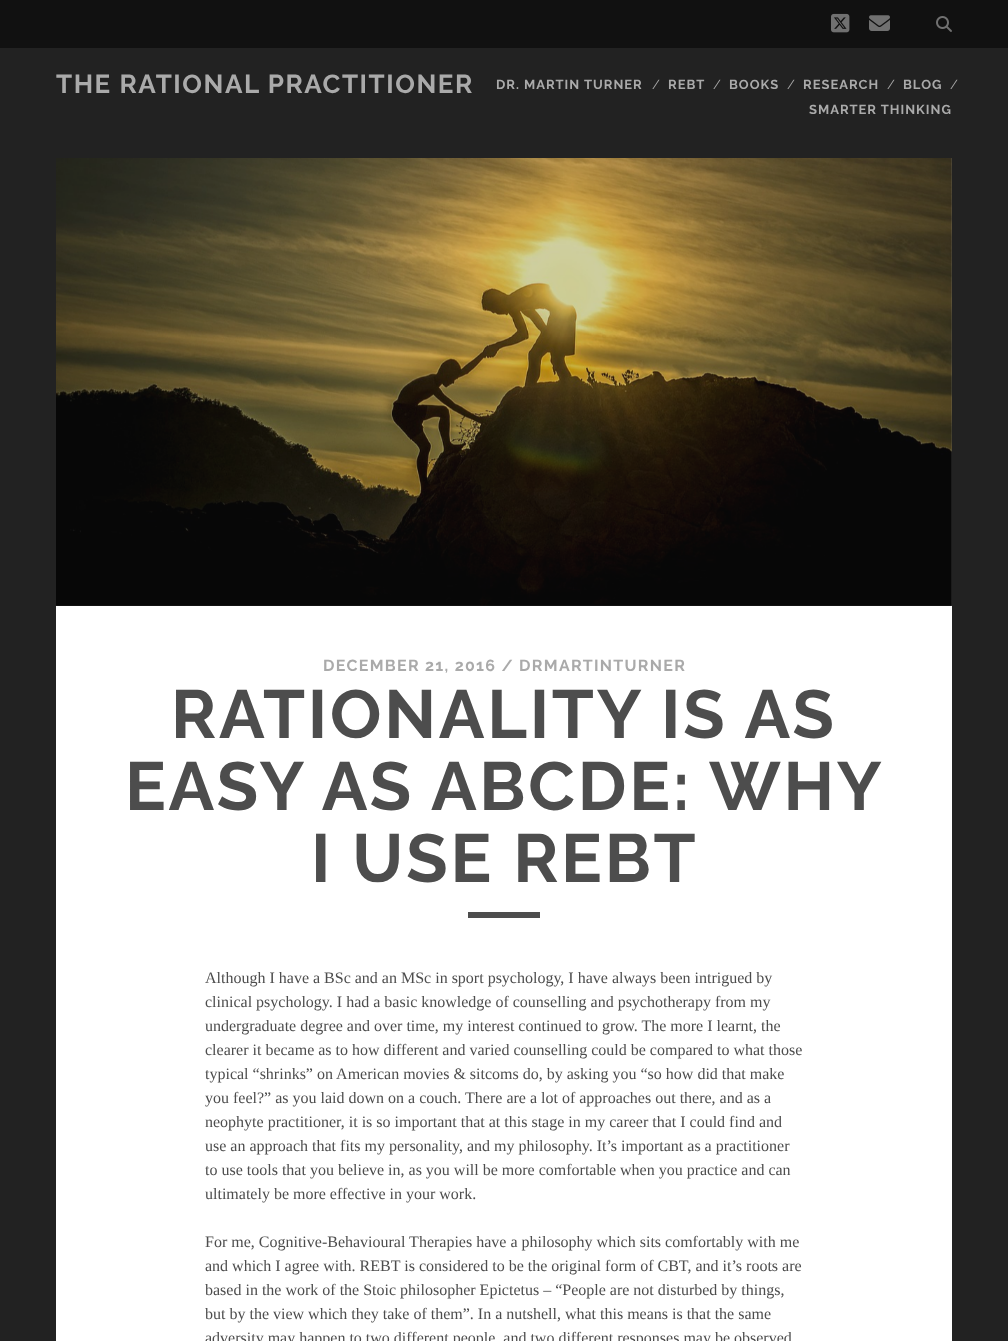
<!DOCTYPE html>
<meta charset="utf-8">
<style>body { margin: 0 } canvas { display: block }</style>
<canvas id="canvas" width="1008" height="1341"></canvas>
<img id="img1" src="img_01.png" hidden>
<img id="img2" src="img_02.png" hidden>
<img id="img3" src="img_03.png" hidden>
<img id="img4" src="img_04.png" hidden>
<script>
window.onload = function () {
	const canvas = document.getElementById("canvas");
	const ctx = canvas.getContext("2d");
	ctx.miterLimit = 4;
	ctx.fontKerning = "normal";
	function txt(s, x, y) {
		ctx.fillText(s, x, y);
	}
	function fill(x, y, w, h) {
		ctx.fillRect(x, y, w, h);
	}
	function img(id, x, y, w, h) {
		ctx.drawImage(document.getElementById(id), x, y, w, h);
	}

	ctx.fillStyle = "#222222";
	fill(0, 0, 1008, 1341);
	ctx.fillStyle = "#111111";
	fill(0, 0, 1008, 48);
	img("img1", 831, 13, 19, 20);
	img("img2", 869, 15, 21, 16);
	img("img3", 936, 16, 16, 16);
	ctx.fillStyle = "#FFFFFF";
	fill(56, 158, 896, 1183);
	img("img4", 56, 158, 896, 448);
	ctx.fillStyle = "#4D4D4D";
	fill(468, 912, 72, 6);
	ctx.letterSpacing = "1.55px";
	ctx.font = "bold 26px Raleway";
	ctx.fillStyle = "#AAAAAA";
	txt("THE RATIONAL PRACTITIONER", 56, 93);
	ctx.letterSpacing = "1px";
	ctx.font = "bold 13px Raleway";
	txt("DR. MARTIN TURNER", 496, 89);
	ctx.letterSpacing = "0px";
	ctx.font = "13px Raleway";
	txt("/", 652, 89);
	ctx.letterSpacing = "1px";
	ctx.font = "bold 13px Raleway";
	txt("REBT", 668, 89);
	ctx.letterSpacing = "0px";
	ctx.font = "13px Raleway";
	txt("/", 713, 89);
	ctx.letterSpacing = "1px";
	ctx.font = "bold 13px Raleway";
	txt("BOOKS", 729, 89);
	ctx.letterSpacing = "0px";
	ctx.font = "13px Raleway";
	txt("/", 787, 89);
	ctx.letterSpacing = "1px";
	ctx.font = "bold 13px Raleway";
	txt("RESEARCH", 803, 89);
	ctx.letterSpacing = "0px";
	ctx.font = "13px Raleway";
	txt("/", 887, 89);
	ctx.letterSpacing = "1px";
	ctx.font = "bold 13px Raleway";
	txt("BLOG", 903, 89);
	ctx.letterSpacing = "0px";
	ctx.font = "13px Raleway";
	txt("/", 950, 89);
	ctx.letterSpacing = "1px";
	ctx.font = "bold 13px Raleway";
	txt("SMARTER THINKING", 809, 114);
	ctx.letterSpacing = "1.3px";
	ctx.font = "bold 16px Raleway";
	txt("DECEMBER 21, 2016 / DRMARTINTURNER", 323, 671);
	ctx.letterSpacing = "2.75px";
	ctx.font = "bold 68px Raleway";
	ctx.fillStyle = "#4D4D4D";
	txt("RATIONALITY IS AS", 171, 738);
	txt("EASY AS ABCDE: WHY", 125, 810);
	txt("I USE REBT", 311, 882);
	ctx.letterSpacing = "0px";
	ctx.font = "16px Liberation Serif";
	txt("Although I have a BSc and an MSc in sport psychology, I have always been intrigued by", 205, 983);
	txt("clinical psychology. I had a basic knowledge of counselling and psychotherapy from my", 205, 1007);
	txt("undergraduate degree and over time, my interest continued to grow. The more I learnt, the", 205, 1031);
	txt("clearer it became as to how different and varied counselling could be compared to what those", 205, 1055);
	txt("typical “shrinks” on American movies & sitcoms do, by asking you “so how did that make", 205, 1079);
	txt("you feel?” as you laid down on a couch. There are a lot of approaches out there, and as a", 205, 1103);
	txt("neophyte practitioner, it is so important that at this stage in my career that I could find and", 205, 1127);
	txt("use an approach that fits my personality, and my philosophy. It’s important as a practitioner", 205, 1151);
	txt("to use tools that you believe in, as you will be more comfortable when you practice and can", 205, 1175);
	txt("ultimately be more effective in your work.", 205, 1199);
	txt("For me, Cognitive-Behavioural Therapies have a philosophy which sits comfortably with me", 205, 1247);
	txt("and which I agree with. REBT is considered to be the original form of CBT, and it’s roots are", 205, 1271);
	txt("based in the work of the Stoic philosopher Epictetus – “People are not disturbed by things,", 205, 1295);
	txt("but by the view which they take of them”. In a nutshell, what this means is that the same", 205, 1319);
	txt("adversity may happen to two different people, and two different responses may be observed", 205, 1343);
};
</script>
